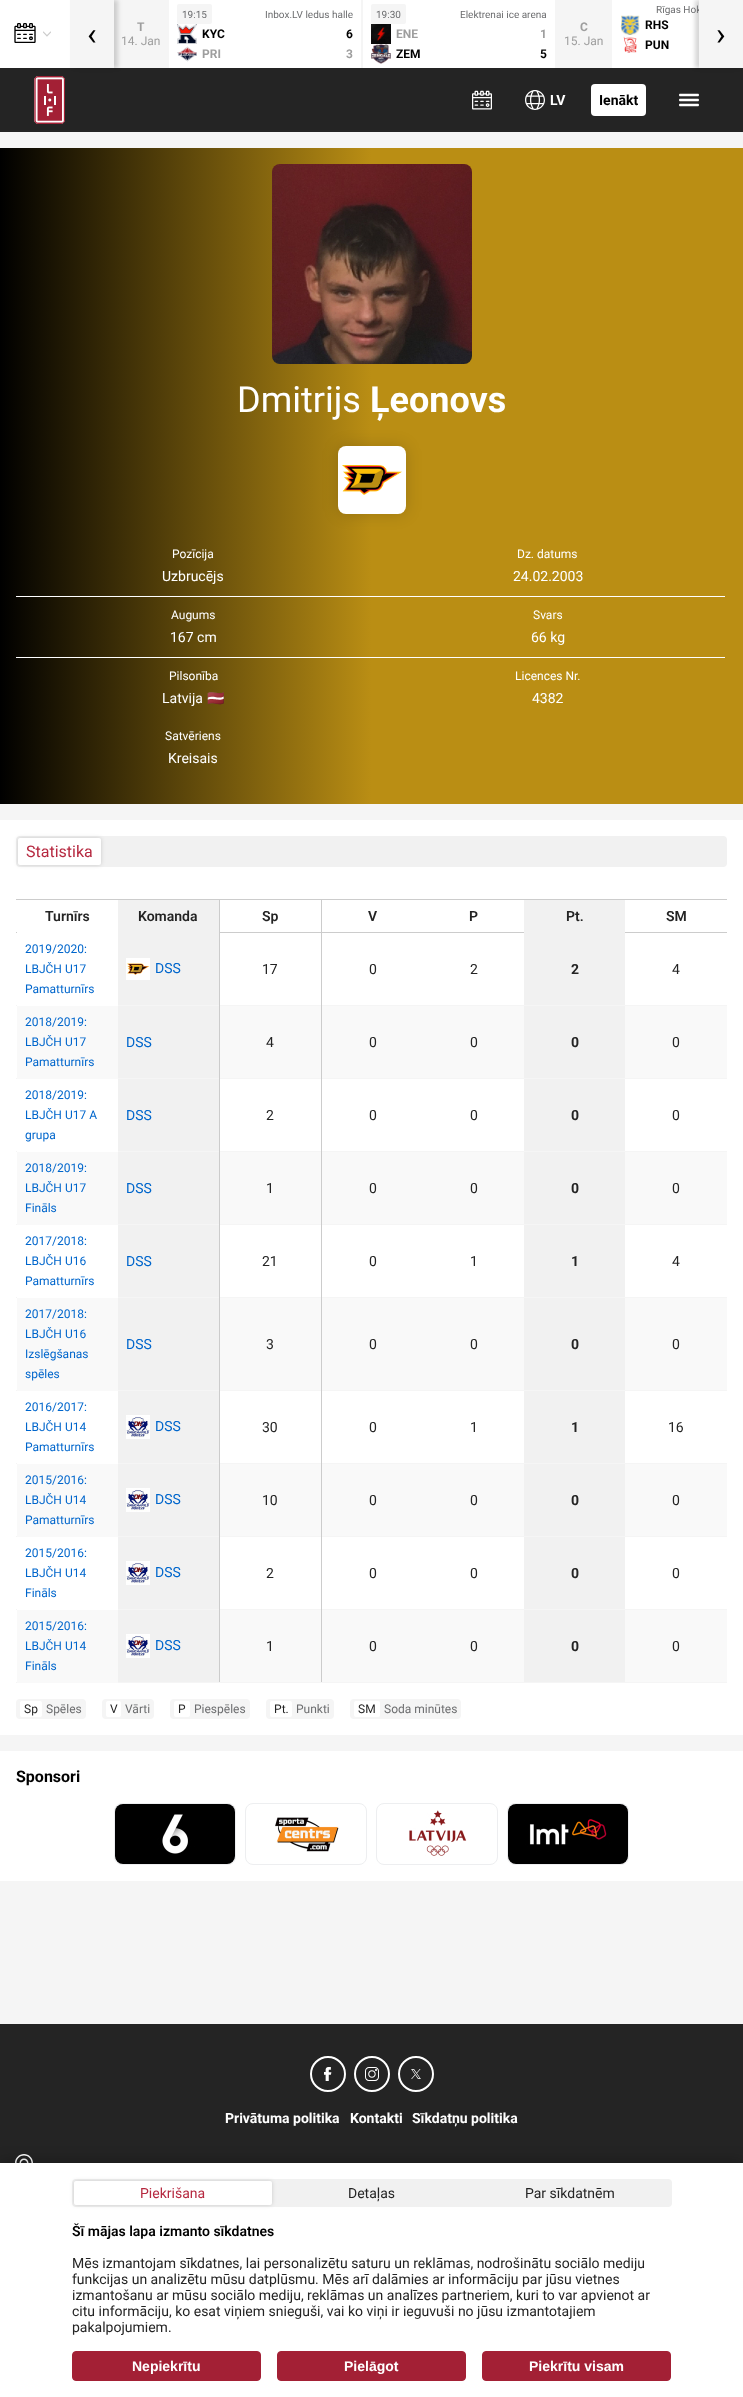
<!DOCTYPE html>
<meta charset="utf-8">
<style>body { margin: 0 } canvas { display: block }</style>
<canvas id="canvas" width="743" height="2397"></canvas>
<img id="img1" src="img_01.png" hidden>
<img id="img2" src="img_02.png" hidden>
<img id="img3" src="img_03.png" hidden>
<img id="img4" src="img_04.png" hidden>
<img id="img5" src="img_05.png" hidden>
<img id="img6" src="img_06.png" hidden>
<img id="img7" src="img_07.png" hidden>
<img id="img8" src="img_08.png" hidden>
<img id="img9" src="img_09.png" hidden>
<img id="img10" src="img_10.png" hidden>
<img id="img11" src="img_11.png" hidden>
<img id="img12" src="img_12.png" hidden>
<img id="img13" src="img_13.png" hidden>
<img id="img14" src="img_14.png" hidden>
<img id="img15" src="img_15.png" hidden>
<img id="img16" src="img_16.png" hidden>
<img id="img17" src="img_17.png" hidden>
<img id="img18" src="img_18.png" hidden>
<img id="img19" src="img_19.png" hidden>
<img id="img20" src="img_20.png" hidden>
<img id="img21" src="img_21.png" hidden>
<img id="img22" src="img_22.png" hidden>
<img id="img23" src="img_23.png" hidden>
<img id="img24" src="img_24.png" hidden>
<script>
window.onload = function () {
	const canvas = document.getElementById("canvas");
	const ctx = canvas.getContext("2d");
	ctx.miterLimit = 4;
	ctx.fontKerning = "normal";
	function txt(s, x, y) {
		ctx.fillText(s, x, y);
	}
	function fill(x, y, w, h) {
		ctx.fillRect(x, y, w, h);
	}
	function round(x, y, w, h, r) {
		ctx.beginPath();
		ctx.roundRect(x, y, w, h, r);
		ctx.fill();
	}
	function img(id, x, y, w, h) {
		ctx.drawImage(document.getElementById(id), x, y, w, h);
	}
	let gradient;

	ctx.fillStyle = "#F5F5F5";
	fill(0, 0, 743, 2397);
	ctx.fillStyle = "#FFFFFF";
	fill(0, 0, 70, 68);
	img("img1", 14, 23, 22, 20);
	img("img2", 43, 31, 8, 6);
	fill(169, 0, 192, 68);
	ctx.fillStyle = "#F5F5F5";
	round(177, 4, 35, 20, 2);
	img("img3", 177, 24, 20, 20);
	img("img4", 177, 46, 20, 16);
	ctx.fillStyle = "#FFFFFF";
	fill(363, 0, 192, 68);
	ctx.fillStyle = "#F5F5F5";
	round(371, 4, 35, 20, 2);
	img("img5", 371, 24, 20, 20);
	img("img6", 371, 44, 20, 20);
	ctx.fillStyle = "#FFFFFF";
	fill(612, 0, 87, 68);
	img("img7", 620, 15, 20, 21);
	img("img8", 623, 35, 14, 18);
	ctx.fillStyle = "#242424";
	fill(0, 68, 743, 64);
	ctx.save();
	ctx.beginPath();
	ctx.moveTo(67, 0);
	ctx.lineTo(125, 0);
	ctx.lineTo(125, 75);
	ctx.lineTo(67, 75);
	ctx.closePath();
	ctx.moveTo(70, 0);
	ctx.lineTo(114, 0);
	ctx.lineTo(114, 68);
	ctx.lineTo(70, 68);
	ctx.closePath();
	ctx.clip("evenodd");
	ctx.fillStyle = "rgba(0, 0, 0, 0.16)";
	ctx.filter = "blur(2px)";
	ctx.beginPath();
	ctx.rect(74, 0, 44, 68);
	ctx.fill();
	ctx.filter = "none";
	ctx.restore();
	ctx.save();
	ctx.beginPath();
	ctx.moveTo(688, 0);
	ctx.lineTo(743, 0);
	ctx.lineTo(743, 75);
	ctx.lineTo(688, 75);
	ctx.closePath();
	ctx.moveTo(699, 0);
	ctx.lineTo(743, 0);
	ctx.lineTo(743, 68);
	ctx.lineTo(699, 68);
	ctx.closePath();
	ctx.clip("evenodd");
	ctx.fillStyle = "rgba(0, 0, 0, 0.16)";
	ctx.filter = "blur(2px)";
	ctx.beginPath();
	ctx.rect(695, 0, 44, 68);
	ctx.fill();
	ctx.filter = "none";
	ctx.restore();
	img("img9", 34, 76, 31, 48);
	img("img10", 472, 90, 20, 20);
	img("img11", 525, 90, 20, 20);
	ctx.fillStyle = "#FFFFFF";
	round(591, 84, 55, 32, 4);
	img("img12", 679, 93, 20, 14);
	gradient = ctx.createLinearGradient(743, 476, 0, 476);
	gradient.addColorStop(0.5, "#BA8E14");
	gradient.addColorStop(1, "#000000");
	ctx.fillStyle = gradient;
	fill(0, 148, 743, 656);
	img("img13", 272, 164, 200, 200);
	ctx.fillStyle = "rgba(0, 0, 0, 0.16)";
	ctx.filter = "blur(8px)";
	ctx.beginPath();
	ctx.roundRect(338, 446, 68, 68, 8);
	ctx.fill();
	ctx.filter = "none";
	ctx.fillStyle = "#FFFFFF";
	round(338, 446, 68, 68, 8);
	img("img14", 342, 465, 60, 30);
	fill(16, 596, 709, 1);
	fill(16, 657, 709, 1);
	fill(0, 820, 743, 915);
	ctx.fillStyle = "#F1F1F1";
	round(16, 836, 711, 31, 4);
	ctx.fillStyle = "rgba(0, 0, 0, 0.16)";
	ctx.filter = "blur(2px)";
	ctx.beginPath();
	ctx.roundRect(18, 838, 83, 27, 2);
	ctx.fill();
	ctx.filter = "none";
	ctx.fillStyle = "#FFFFFF";
	round(18, 838, 83, 27, 2);
	ctx.fillStyle = "#CCCCCC";
	fill(16, 899, 711, 1);
	fill(219, 932, 306, 1);
	ctx.fillStyle = "#F5F5F5";
	fill(117, 1005, 610, 1);
	fill(117, 1078, 610, 1);
	fill(117, 1151, 610, 1);
	fill(117, 1224, 610, 1);
	fill(117, 1297, 610, 1);
	fill(117, 1390, 610, 1);
	fill(117, 1463, 610, 1);
	fill(117, 1536, 610, 1);
	fill(117, 1609, 610, 1);
	fill(321, 1682, 406, 1);
	ctx.fillStyle = "#CCCCCC";
	fill(321, 1609, 1, 74);
	ctx.fillStyle = "#F5F5F5";
	fill(219, 1682, 103, 1);
	ctx.fillStyle = "#CCCCCC";
	fill(219, 1609, 1, 74);
	fill(219, 1536, 1, 74);
	fill(219, 1463, 1, 74);
	fill(219, 1390, 1, 74);
	fill(219, 1297, 1, 94);
	fill(219, 1224, 1, 74);
	fill(219, 1151, 1, 74);
	fill(219, 1078, 1, 74);
	fill(219, 1005, 1, 74);
	fill(219, 932, 1, 74);
	fill(219, 899, 1, 34);
	fill(321, 1536, 1, 74);
	fill(321, 1463, 1, 74);
	fill(321, 1390, 1, 74);
	fill(321, 1297, 1, 94);
	fill(321, 1224, 1, 74);
	fill(321, 1151, 1, 74);
	fill(321, 1078, 1, 74);
	fill(321, 1005, 1, 74);
	fill(321, 932, 1, 74);
	fill(321, 899, 1, 34);
	ctx.fillStyle = "#F1F1F1";
	fill(524, 900, 101, 33);
	ctx.fillStyle = "#CCCCCC";
	fill(16, 932, 1, 1);
	ctx.fillStyle = "#FFFFFF";
	fill(117, 1005, 1, 1);
	ctx.fillStyle = "#F1F1F1";
	fill(118, 900, 101, 105);
	img("img15", 126, 958, 24, 22);
	fill(524, 933, 101, 72);
	ctx.fillStyle = "#CCCCCC";
	fill(625, 932, 102, 1);
	ctx.fillStyle = "#F5F5F5";
	fill(16, 1005, 1, 1);
	ctx.fillStyle = "#F9F9F9";
	fill(17, 1006, 101, 73);
	ctx.fillStyle = "#F1F1F1";
	fill(118, 1006, 101, 72);
	ctx.fillStyle = "#F9F9F9";
	fill(220, 1006, 101, 72);
	fill(322, 1006, 202, 72);
	ctx.fillStyle = "#F1F1F1";
	fill(524, 1006, 101, 72);
	ctx.fillStyle = "#F9F9F9";
	fill(625, 1006, 102, 72);
	ctx.fillStyle = "#F5F5F5";
	fill(16, 1078, 1, 1);
	ctx.fillStyle = "#FFFFFF";
	fill(117, 1151, 1, 1);
	ctx.fillStyle = "#F1F1F1";
	fill(118, 1079, 101, 72);
	fill(524, 1079, 101, 72);
	ctx.fillStyle = "#F5F5F5";
	fill(16, 1151, 1, 1);
	ctx.fillStyle = "#F9F9F9";
	fill(17, 1152, 101, 73);
	ctx.fillStyle = "#F1F1F1";
	fill(118, 1152, 101, 72);
	ctx.fillStyle = "#F9F9F9";
	fill(220, 1152, 101, 72);
	fill(322, 1152, 202, 72);
	ctx.fillStyle = "#F1F1F1";
	fill(524, 1152, 101, 72);
	ctx.fillStyle = "#F9F9F9";
	fill(625, 1152, 102, 72);
	ctx.fillStyle = "#F5F5F5";
	fill(16, 1224, 1, 1);
	ctx.fillStyle = "#FFFFFF";
	fill(117, 1297, 1, 1);
	ctx.fillStyle = "#F1F1F1";
	fill(118, 1225, 101, 72);
	fill(524, 1225, 101, 72);
	ctx.fillStyle = "#F5F5F5";
	fill(16, 1297, 1, 1);
	ctx.fillStyle = "#F9F9F9";
	fill(17, 1298, 101, 93);
	ctx.fillStyle = "#F1F1F1";
	fill(118, 1298, 101, 92);
	ctx.fillStyle = "#F9F9F9";
	fill(220, 1298, 101, 92);
	fill(322, 1298, 202, 92);
	ctx.fillStyle = "#F1F1F1";
	fill(524, 1298, 101, 92);
	ctx.fillStyle = "#F9F9F9";
	fill(625, 1298, 102, 92);
	ctx.fillStyle = "#F5F5F5";
	fill(16, 1390, 1, 1);
	ctx.fillStyle = "#FFFFFF";
	fill(117, 1463, 1, 1);
	ctx.fillStyle = "#F1F1F1";
	fill(118, 1391, 101, 72);
	img("img16", 126, 1415, 24, 24);
	fill(524, 1391, 101, 72);
	ctx.fillStyle = "#F5F5F5";
	fill(16, 1463, 1, 1);
	ctx.fillStyle = "#F9F9F9";
	fill(17, 1464, 101, 73);
	ctx.fillStyle = "#F1F1F1";
	fill(118, 1464, 101, 72);
	img("img16", 126, 1488, 24, 24);
	ctx.fillStyle = "#F9F9F9";
	fill(220, 1464, 101, 72);
	fill(322, 1464, 202, 72);
	ctx.fillStyle = "#F1F1F1";
	fill(524, 1464, 101, 72);
	ctx.fillStyle = "#F9F9F9";
	fill(625, 1464, 102, 72);
	ctx.fillStyle = "#F5F5F5";
	fill(16, 1536, 1, 1);
	ctx.fillStyle = "#FFFFFF";
	fill(117, 1609, 1, 1);
	ctx.fillStyle = "#F1F1F1";
	fill(118, 1537, 101, 72);
	img("img16", 126, 1561, 24, 24);
	fill(524, 1537, 101, 72);
	ctx.fillStyle = "#F5F5F5";
	fill(16, 1609, 1, 1);
	fill(16, 1682, 1, 1);
	fill(117, 1682, 103, 1);
	ctx.fillStyle = "#F9F9F9";
	fill(17, 1610, 101, 73);
	ctx.fillStyle = "#F1F1F1";
	fill(118, 1610, 101, 72);
	img("img16", 126, 1634, 24, 24);
	ctx.fillStyle = "#F9F9F9";
	fill(220, 1610, 101, 72);
	fill(322, 1610, 202, 72);
	ctx.fillStyle = "#F1F1F1";
	fill(524, 1610, 101, 72);
	ctx.fillStyle = "#F9F9F9";
	fill(625, 1610, 102, 72);
	ctx.fillStyle = "#F5F5F5";
	round(16, 1699, 70, 20, 4);
	ctx.fillStyle = "#FFFFFF";
	round(20, 1701, 22, 16, 2);
	ctx.fillStyle = "#F5F5F5";
	round(102, 1699, 52, 20, 4);
	ctx.fillStyle = "#FFFFFF";
	round(106, 1701, 15, 16, 2);
	ctx.fillStyle = "#F5F5F5";
	round(170, 1699, 80, 20, 4);
	ctx.fillStyle = "#FFFFFF";
	round(174, 1701, 16, 16, 2);
	ctx.fillStyle = "#F5F5F5";
	round(266, 1699, 68, 20, 4);
	ctx.fillStyle = "#FFFFFF";
	round(270, 1701, 22, 16, 2);
	ctx.fillStyle = "#F5F5F5";
	round(350, 1699, 111, 20, 4);
	ctx.fillStyle = "#FFFFFF";
	round(354, 1701, 26, 16, 2);
	fill(0, 1751, 743, 130);
	ctx.beginPath();
	ctx.roundRect(114.5, 1803.5, 121, 61, 7.5);
	ctx.strokeStyle = "#EDEEF0";
	ctx.stroke();
	img("img17", 115, 1804, 120, 60);
	ctx.beginPath();
	ctx.roundRect(245.5, 1803.5, 121, 61, 7.5);
	ctx.stroke();
	img("img18", 275, 1817, 64, 35);
	ctx.beginPath();
	ctx.roundRect(376.5, 1803.5, 121, 61, 7.5);
	ctx.stroke();
	img("img19", 409, 1810, 58, 46);
	ctx.beginPath();
	ctx.roundRect(507.5, 1803.5, 121, 61, 7.5);
	ctx.stroke();
	img("img20", 508, 1804, 120, 60);
	ctx.fillStyle = "#242424";
	fill(0, 2024, 743, 139);
	ctx.beginPath();
	ctx.arc(328, 2074, 17, 0, Math.PI * 2);
	ctx.strokeStyle = "#FFFFFF";
	ctx.lineWidth = 2;
	ctx.stroke();
	img("img21", 324, 2067, 8, 14);
	ctx.beginPath();
	ctx.arc(372, 2074, 17, 0, Math.PI * 2);
	ctx.stroke();
	img("img22", 365, 2067, 14, 14);
	ctx.beginPath();
	ctx.arc(416, 2074, 17, 0, Math.PI * 2);
	ctx.stroke();
	img("img23", 411, 2069, 10, 10);
	img("img24", 15, 2154, 18, 9);
	ctx.fillStyle = "rgba(0, 0, 0, 0.32)";
	ctx.filter = "blur(8px)";
	ctx.beginPath();
	ctx.rect(0, 2163, 743, 234);
	ctx.fill();
	ctx.filter = "none";
	ctx.fillStyle = "#FFFFFF";
	fill(0, 2163, 743, 234);
	ctx.fillStyle = "#F1F1F1";
	round(72, 2179, 600, 28, 4);
	ctx.fillStyle = "rgba(0, 0, 0, 0.16)";
	ctx.filter = "blur(2px)";
	ctx.beginPath();
	ctx.roundRect(74, 2181, 198, 24, 2);
	ctx.fill();
	ctx.filter = "none";
	ctx.fillStyle = "#FFFFFF";
	round(74, 2181, 198, 24, 2);
	ctx.fillStyle = "#A32035";
	ctx.beginPath();
	ctx.roundRect(72.5, 2351.5, 188, 29, 3.5);
	ctx.fill();
	ctx.strokeStyle = "#A32035";
	ctx.lineWidth = 1;
	ctx.stroke();
	ctx.beginPath();
	ctx.roundRect(277.5, 2351.5, 188, 29, 3.5);
	ctx.fill();
	ctx.stroke();
	ctx.beginPath();
	ctx.roundRect(482.5, 2351.5, 188, 29, 3.5);
	ctx.fill();
	ctx.stroke();
	ctx.font = "bold 12px Roboto";
	ctx.fillStyle = "#9E9E9E";
	txt("T", 137, 31);
	ctx.font = "12px Roboto";
	txt("14. Jan", 121, 45);
	ctx.font = "10px Roboto";
	ctx.fillStyle = "#6C6D6F";
	txt("19:15", 182, 18);
	txt("Inbox.LV ledus halle", 265, 18);
	ctx.font = "bold 12px Roboto";
	ctx.fillStyle = "#000000";
	txt("KYC", 202, 38);
	txt("6", 346, 38);
	ctx.fillStyle = "#9E9E9E";
	txt("PRI", 202, 58);
	txt("3", 346, 58);
	ctx.font = "10px Roboto";
	ctx.fillStyle = "#6C6D6F";
	txt("19:30", 376, 18);
	txt("Elektrenai ice arena", 460, 18);
	ctx.font = "bold 12px Roboto";
	ctx.fillStyle = "#9E9E9E";
	txt("ENE", 396, 38);
	txt("1", 540, 38);
	ctx.fillStyle = "#000000";
	txt("ZEM", 396, 58);
	txt("5", 540, 58);
	ctx.fillStyle = "#9E9E9E";
	txt("C", 580, 31);
	ctx.font = "12px Roboto";
	txt("15. Jan", 564, 45);
	ctx.save();
	ctx.beginPath();
	ctx.rect(114, 0, 585, 68);
	ctx.clip();
	ctx.font = "10px Roboto";
	ctx.fillStyle = "#6C6D6F";
	txt("Rīgas Hok", 656, 13);
	ctx.restore();
	ctx.font = "bold 12px Roboto";
	ctx.fillStyle = "#000000";
	txt("RHS", 645, 29);
	txt("PUN", 645, 49);
	ctx.font = "32px Roboto";
	txt("‹", 87, 45);
	txt("›", 716, 45);
	ctx.font = "bold 14px Roboto";
	ctx.fillStyle = "#FFFFFF";
	txt("LV", 550, 105);
	ctx.fillStyle = "#000000";
	txt("Ienākt", 599, 105);
	ctx.font = "36px Roboto";
	ctx.fillStyle = "#FFFFFF";
	txt("Dmitrijs", 237, 412);
	ctx.font = "bold 36px Roboto";
	txt("Ļeonovs", 370, 412);
	ctx.font = "12px Roboto";
	txt("Pozīcija", 172, 558);
	ctx.font = "14px Roboto";
	txt("Uzbrucējs", 162, 581);
	ctx.font = "12px Roboto";
	txt("Dz. datums", 517, 558);
	ctx.font = "14px Roboto";
	txt("24.02.2003", 513, 581);
	ctx.font = "12px Roboto";
	txt("Augums", 171, 619);
	ctx.font = "14px Roboto";
	txt("167 cm", 170, 642);
	ctx.font = "12px Roboto";
	txt("Svars", 533, 619);
	ctx.font = "14px Roboto";
	txt("66 kg", 531, 642);
	ctx.font = "12px Roboto";
	txt("Pilsonība", 169, 680);
	ctx.font = "14px Roboto";
	txt("Latvija", 162, 703);
	ctx.font = "14px Noto Color Emoji";
	txt("🇱🇻", 207, 703);
	ctx.font = "12px Roboto";
	txt("Licences Nr.", 515, 680);
	ctx.font = "14px Roboto";
	txt("4382", 532, 703);
	ctx.font = "12px Roboto";
	txt("Satvēriens", 165, 740);
	ctx.font = "14px Roboto";
	txt("Kreisais", 168, 763);
	ctx.font = "16px Roboto";
	ctx.fillStyle = "#B62940";
	txt("Statistika", 26, 857);
	ctx.font = "600 14px Roboto";
	ctx.fillStyle = "#242424";
	txt("Turnīrs", 45, 921);
	txt("Komanda", 138, 921);
	txt("Sp", 262, 921);
	txt("V", 368, 921);
	txt("P", 469, 921);
	txt("Pt.", 566, 921);
	txt("SM", 666, 921);
	ctx.font = "12px Roboto";
	ctx.fillStyle = "#0066CC";
	txt("2019/2020:", 25, 953);
	txt("LBJČH U17", 25, 973);
	txt("Pamatturnīrs", 25, 993);
	ctx.font = "14px Roboto";
	txt("DSS", 155, 973);
	ctx.fillStyle = "#242424";
	txt("17", 262, 974);
	txt("0", 369, 974);
	txt("2", 470, 974);
	ctx.font = "bold 14px Roboto";
	txt("2", 571, 974);
	ctx.font = "14px Roboto";
	txt("4", 672, 974);
	ctx.font = "12px Roboto";
	ctx.fillStyle = "#0066CC";
	txt("2018/2019:", 25, 1026);
	txt("LBJČH U17", 25, 1046);
	txt("Pamatturnīrs", 25, 1066);
	ctx.font = "14px Roboto";
	txt("DSS", 126, 1047);
	ctx.fillStyle = "#242424";
	txt("4", 266, 1047);
	txt("0", 369, 1047);
	txt("0", 470, 1047);
	ctx.font = "bold 14px Roboto";
	txt("0", 571, 1047);
	ctx.font = "14px Roboto";
	txt("0", 672, 1047);
	ctx.font = "12px Roboto";
	ctx.fillStyle = "#0066CC";
	txt("2018/2019:", 25, 1099);
	txt("LBJČH U17 A", 25, 1119);
	txt("grupa", 25, 1139);
	ctx.font = "14px Roboto";
	txt("DSS", 126, 1120);
	ctx.fillStyle = "#242424";
	txt("2", 266, 1120);
	txt("0", 369, 1120);
	txt("0", 470, 1120);
	ctx.font = "bold 14px Roboto";
	txt("0", 571, 1120);
	ctx.font = "14px Roboto";
	txt("0", 672, 1120);
	ctx.font = "12px Roboto";
	ctx.fillStyle = "#0066CC";
	txt("2018/2019:", 25, 1172);
	txt("LBJČH U17", 25, 1192);
	txt("Fināls", 25, 1212);
	ctx.font = "14px Roboto";
	txt("DSS", 126, 1193);
	ctx.fillStyle = "#242424";
	txt("1", 266, 1193);
	txt("0", 369, 1193);
	txt("0", 470, 1193);
	ctx.font = "bold 14px Roboto";
	txt("0", 571, 1193);
	ctx.font = "14px Roboto";
	txt("0", 672, 1193);
	ctx.font = "12px Roboto";
	ctx.fillStyle = "#0066CC";
	txt("2017/2018:", 25, 1245);
	txt("LBJČH U16", 25, 1265);
	txt("Pamatturnīrs", 25, 1285);
	ctx.font = "14px Roboto";
	txt("DSS", 126, 1266);
	ctx.fillStyle = "#242424";
	txt("21", 262, 1266);
	txt("0", 369, 1266);
	txt("1", 470, 1266);
	ctx.font = "bold 14px Roboto";
	txt("1", 571, 1266);
	ctx.font = "14px Roboto";
	txt("4", 672, 1266);
	ctx.font = "12px Roboto";
	ctx.fillStyle = "#0066CC";
	txt("2017/2018:", 25, 1318);
	txt("LBJČH U16", 25, 1338);
	txt("Izslēgšanas", 25, 1358);
	txt("spēles", 25, 1378);
	ctx.font = "14px Roboto";
	txt("DSS", 126, 1349);
	ctx.fillStyle = "#242424";
	txt("3", 266, 1349);
	txt("0", 369, 1349);
	txt("0", 470, 1349);
	ctx.font = "bold 14px Roboto";
	txt("0", 571, 1349);
	ctx.font = "14px Roboto";
	txt("0", 672, 1349);
	ctx.font = "12px Roboto";
	ctx.fillStyle = "#0066CC";
	txt("2016/2017:", 25, 1411);
	txt("LBJČH U14", 25, 1431);
	txt("Pamatturnīrs", 25, 1451);
	ctx.font = "14px Roboto";
	txt("DSS", 155, 1431);
	ctx.fillStyle = "#242424";
	txt("30", 262, 1432);
	txt("0", 369, 1432);
	txt("1", 470, 1432);
	ctx.font = "bold 14px Roboto";
	txt("1", 571, 1432);
	ctx.font = "14px Roboto";
	txt("16", 668, 1432);
	ctx.font = "12px Roboto";
	ctx.fillStyle = "#0066CC";
	txt("2015/2016:", 25, 1484);
	txt("LBJČH U14", 25, 1504);
	txt("Pamatturnīrs", 25, 1524);
	ctx.font = "14px Roboto";
	txt("DSS", 155, 1504);
	ctx.fillStyle = "#242424";
	txt("10", 262, 1505);
	txt("0", 369, 1505);
	txt("0", 470, 1505);
	ctx.font = "bold 14px Roboto";
	txt("0", 571, 1505);
	ctx.font = "14px Roboto";
	txt("0", 672, 1505);
	ctx.font = "12px Roboto";
	ctx.fillStyle = "#0066CC";
	txt("2015/2016:", 25, 1557);
	txt("LBJČH U14", 25, 1577);
	txt("Fināls", 25, 1597);
	ctx.font = "14px Roboto";
	txt("DSS", 155, 1577);
	ctx.fillStyle = "#242424";
	txt("2", 266, 1578);
	txt("0", 369, 1578);
	txt("0", 470, 1578);
	ctx.font = "bold 14px Roboto";
	txt("0", 571, 1578);
	ctx.font = "14px Roboto";
	txt("0", 672, 1578);
	ctx.font = "12px Roboto";
	ctx.fillStyle = "#0066CC";
	txt("2015/2016:", 25, 1630);
	txt("LBJČH U14", 25, 1650);
	txt("Fināls", 25, 1670);
	ctx.font = "14px Roboto";
	txt("DSS", 155, 1650);
	ctx.fillStyle = "#242424";
	txt("1", 266, 1651);
	txt("0", 369, 1651);
	txt("0", 470, 1651);
	ctx.font = "bold 14px Roboto";
	txt("0", 571, 1651);
	ctx.font = "14px Roboto";
	txt("0", 672, 1651);
	ctx.font = "12px Roboto";
	txt("Sp", 24, 1713);
	ctx.fillStyle = "#6C6D6F";
	txt("Spēles", 46, 1713);
	ctx.fillStyle = "#242424";
	txt("V", 110, 1713);
	ctx.fillStyle = "#6C6D6F";
	txt("Vārti", 125, 1713);
	ctx.fillStyle = "#242424";
	txt("P", 178, 1713);
	ctx.fillStyle = "#6C6D6F";
	txt("Piespēles", 194, 1713);
	ctx.fillStyle = "#242424";
	txt("Pt.", 274, 1713);
	ctx.fillStyle = "#6C6D6F";
	txt("Punkti", 296, 1713);
	ctx.fillStyle = "#242424";
	txt("SM", 358, 1713);
	ctx.fillStyle = "#6C6D6F";
	txt("Soda minūtes", 384, 1713);
	ctx.font = "bold 16px Roboto";
	ctx.fillStyle = "#000000";
	txt("Sponsori", 16, 1782);
	ctx.font = "bold 14px Roboto";
	ctx.fillStyle = "#FFFFFF";
	txt("Privātuma politika", 225, 2123);
	txt("Kontakti", 350, 2123);
	txt("Sīkdatņu politika", 412, 2123);
	ctx.font = "14px Roboto";
	ctx.fillStyle = "#B62940";
	txt("Piekrišana", 140, 2198);
	ctx.fillStyle = "#242424";
	txt("Detaļas", 348, 2198);
	txt("Par sīkdatnēm", 525, 2198);
	ctx.font = "600 14px Roboto";
	ctx.fillStyle = "#000000";
	txt("Šī mājas lapa izmanto sīkdatnes", 72, 2236);
	ctx.font = "14px Roboto";
	ctx.fillStyle = "#242424";
	txt("Mēs izmantojam sīkdatnes, lai personalizētu saturu un reklāmas, nodrošinātu sociālo mediju", 72, 2268);
	txt("funkcijas un analizētu mūsu datplūsmu. Mēs arī dalāmies ar informāciju par jūsu vietnes", 72, 2284);
	txt("izmantošanu ar mūsu sociālo mediju, reklāmas un analīzes partneriem, kuri to var apvienot ar", 72, 2300);
	txt("citu informāciju, ko esat viņiem snieguši, vai ko viņi ir ieguvuši no jūsu izmantotajiem", 72, 2316);
	txt("pakalpojumiem.", 72, 2332);
	ctx.font = "bold 14px Liberation Sans";
	ctx.fillStyle = "#FFFFFF";
	txt("Nepiekrītu", 132, 2371);
	txt("Pielāgot", 344, 2371);
	txt("Piekrītu visam", 529, 2371);
};
</script>
